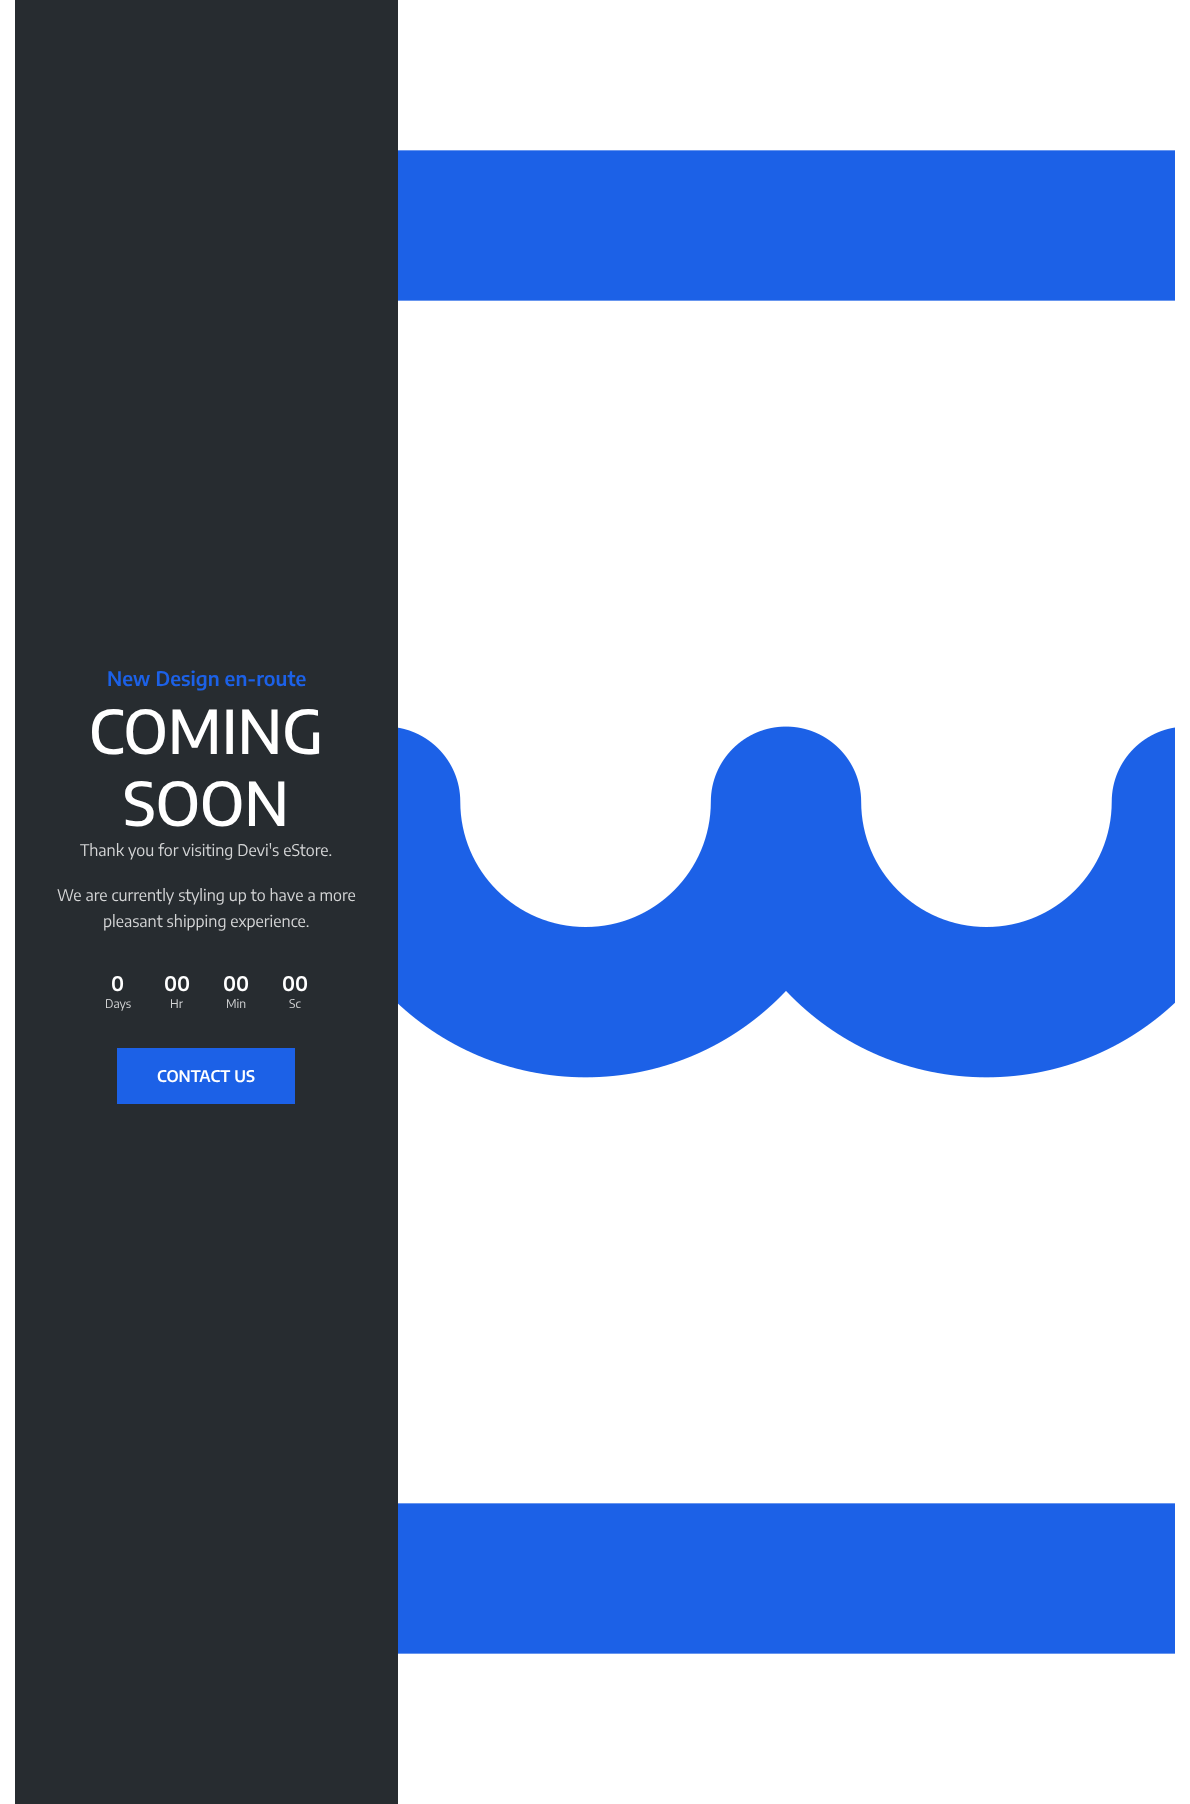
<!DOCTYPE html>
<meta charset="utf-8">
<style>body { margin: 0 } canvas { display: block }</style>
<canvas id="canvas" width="1190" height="1804"></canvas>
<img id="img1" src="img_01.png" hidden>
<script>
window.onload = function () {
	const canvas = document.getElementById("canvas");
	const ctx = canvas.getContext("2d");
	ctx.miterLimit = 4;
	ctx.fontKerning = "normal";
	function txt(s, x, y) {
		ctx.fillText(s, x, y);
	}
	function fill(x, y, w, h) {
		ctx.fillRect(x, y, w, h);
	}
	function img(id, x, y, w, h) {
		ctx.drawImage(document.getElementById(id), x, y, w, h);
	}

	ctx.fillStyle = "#FFFFFF";
	fill(0, 0, 1190, 1804);
	ctx.fillStyle = "#272C30";
	fill(15, 0, 383, 1804);
	ctx.fillStyle = "#1C61E7";
	fill(117, 1048, 178, 56);
	img("img1", 398, 150, 777, 1504);
	ctx.font = "600 20px Encode Sans";
	txt("New Design en-route", 107, 686);
	ctx.font = "500 60px Encode Sans";
	ctx.fillStyle = "#FFFFFF";
	txt("COMING", 89, 754);
	txt("SOON", 123, 826);
	ctx.font = "16px Encode Sans";
	ctx.fillStyle = "#D4D5D6";
	txt("Thank you for visiting Devi's eStore.", 80, 856);
	txt("We are currently styling up to have a more", 57, 901);
	txt("pleasant shipping experience.", 103, 927);
	ctx.font = "600 20px Encode Sans";
	ctx.fillStyle = "#FFFFFF";
	txt("0", 111, 991);
	ctx.font = "12px Encode Sans";
	ctx.fillStyle = "#D4D5D6";
	txt("Days", 105, 1008);
	ctx.font = "600 20px Encode Sans";
	ctx.fillStyle = "#FFFFFF";
	txt("00", 164, 991);
	ctx.font = "12px Encode Sans";
	ctx.fillStyle = "#D4D5D6";
	txt("Hr", 170, 1008);
	ctx.font = "600 20px Encode Sans";
	ctx.fillStyle = "#FFFFFF";
	txt("00", 223, 991);
	ctx.font = "12px Encode Sans";
	ctx.fillStyle = "#D4D5D6";
	txt("Min", 226, 1008);
	ctx.font = "600 20px Encode Sans";
	ctx.fillStyle = "#FFFFFF";
	txt("00", 282, 991);
	ctx.font = "12px Encode Sans";
	ctx.fillStyle = "#D4D5D6";
	txt("Sc", 289, 1008);
	ctx.font = "600 16px Encode Sans";
	ctx.fillStyle = "#FFFFFF";
	txt("CONTACT US", 157, 1082);
};
</script>
